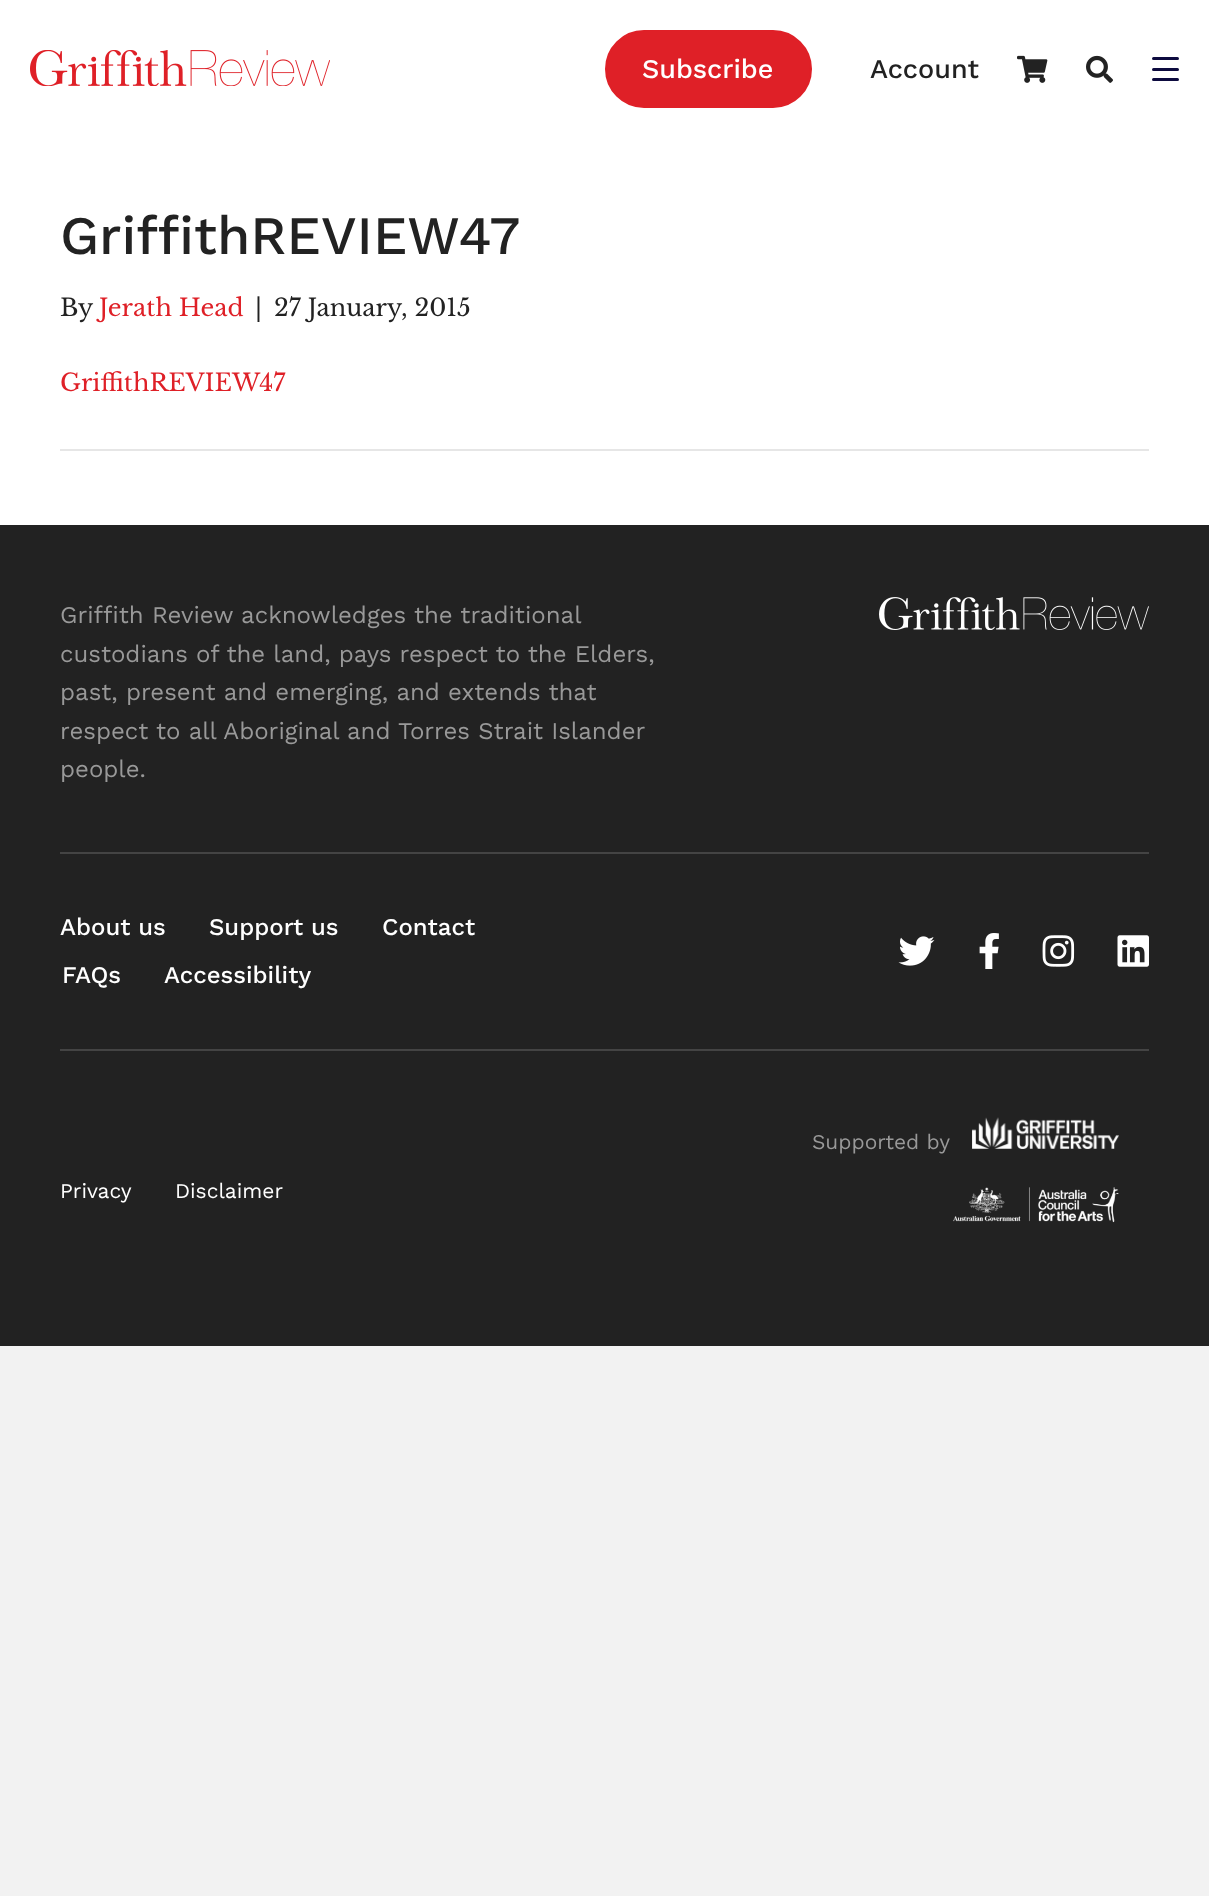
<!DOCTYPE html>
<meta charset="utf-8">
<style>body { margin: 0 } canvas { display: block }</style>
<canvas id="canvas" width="1209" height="1896"></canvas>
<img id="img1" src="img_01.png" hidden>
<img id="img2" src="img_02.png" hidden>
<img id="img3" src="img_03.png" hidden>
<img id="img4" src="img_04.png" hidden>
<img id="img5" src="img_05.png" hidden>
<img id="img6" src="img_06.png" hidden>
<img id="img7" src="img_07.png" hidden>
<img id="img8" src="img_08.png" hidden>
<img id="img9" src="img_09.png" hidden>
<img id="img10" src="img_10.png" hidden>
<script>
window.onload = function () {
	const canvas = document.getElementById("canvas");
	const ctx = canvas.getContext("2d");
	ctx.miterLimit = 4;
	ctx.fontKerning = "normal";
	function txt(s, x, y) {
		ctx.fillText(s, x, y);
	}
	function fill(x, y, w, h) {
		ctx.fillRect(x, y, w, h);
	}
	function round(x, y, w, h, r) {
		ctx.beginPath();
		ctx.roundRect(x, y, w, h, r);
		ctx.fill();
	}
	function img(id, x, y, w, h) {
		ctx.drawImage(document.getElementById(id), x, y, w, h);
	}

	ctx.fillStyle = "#F2F2F2";
	fill(0, 0, 1209, 1896);
	ctx.fillStyle = "#FFFFFF";
	fill(0, 0, 1209, 525);
	img("img1", 30, 50, 300, 36);
	ctx.fillStyle = "#DF2027";
	ctx.beginPath();
	ctx.roundRect(606, 31, 205, 76, 38);
	ctx.fill();
	ctx.strokeStyle = "#DF2027";
	ctx.lineWidth = 2;
	ctx.stroke();
	img("img2", 1017, 55, 31, 28);
	img("img3", 1086, 55, 27, 28);
	ctx.fillStyle = "#0D0B3F";
	round(1152, 57, 27, 3, 1.5);
	round(1152, 68, 27, 3, 1.5);
	round(1152, 78, 27, 3, 1.5);
	ctx.fillStyle = "#E6E6E6";
	fill(60, 449, 1089, 2);
	ctx.fillStyle = "#222222";
	fill(0, 525, 1209, 821);
	img("img4", 879, 597, 270, 33);
	ctx.fillStyle = "#444444";
	fill(60, 852, 1089, 2);
	img("img5", 898, 936, 37, 30);
	img("img6", 979, 933, 20, 36);
	img("img7", 1042, 935, 33, 32);
	img("img8", 1117, 935, 32, 32);
	fill(60, 1049, 1089, 2);
	img("img9", 972, 1117, 147, 32);
	img("img10", 953, 1187, 166, 36);
	ctx.font = "500 27px Work Sans";
	ctx.fillStyle = "#FFFFFF";
	txt("Subscribe", 642, 78);
	ctx.fillStyle = "#222222";
	txt("Account", 870, 78);
	ctx.font = "500 54px Work Sans";
	txt("GriffithREVIEW47", 60, 254);
	ctx.font = "24px Libre Baskerville";
	txt("By", 60, 316);
	ctx.fillStyle = "#DF2027";
	txt("Jerath Head", 99, 316);
	ctx.fillStyle = "#222222";
	txt("|", 255, 316);
	txt("27 January, 2015", 274, 316);
	ctx.fillStyle = "#DF2027";
	txt("GriffithREVIEW47", 60, 391);
	ctx.font = "24px Work Sans";
	ctx.fillStyle = "#999999";
	txt("Griffith Review acknowledges the traditional", 60, 623);
	txt("custodians of the land, pays respect to the Elders,", 60, 662);
	txt("past, present and emerging, and extends that", 60, 700);
	txt("respect to all Aboriginal and Torres Strait Islander", 60, 739);
	txt("people.", 60, 777);
	ctx.font = "500 24px Work Sans";
	ctx.fillStyle = "#FFFFFF";
	txt("About us", 60, 935);
	txt("Support us", 209, 935);
	txt("Contact", 382, 935);
	txt("FAQs", 62, 983);
	txt("Accessibility", 164, 983);
	ctx.font = "21px Work Sans";
	ctx.fillStyle = "#999999";
	txt("Supported by", 812, 1149);
	ctx.fillStyle = "#FFFFFF";
	txt("Privacy", 60, 1198);
	txt("Disclaimer", 175, 1198);
};
</script>
